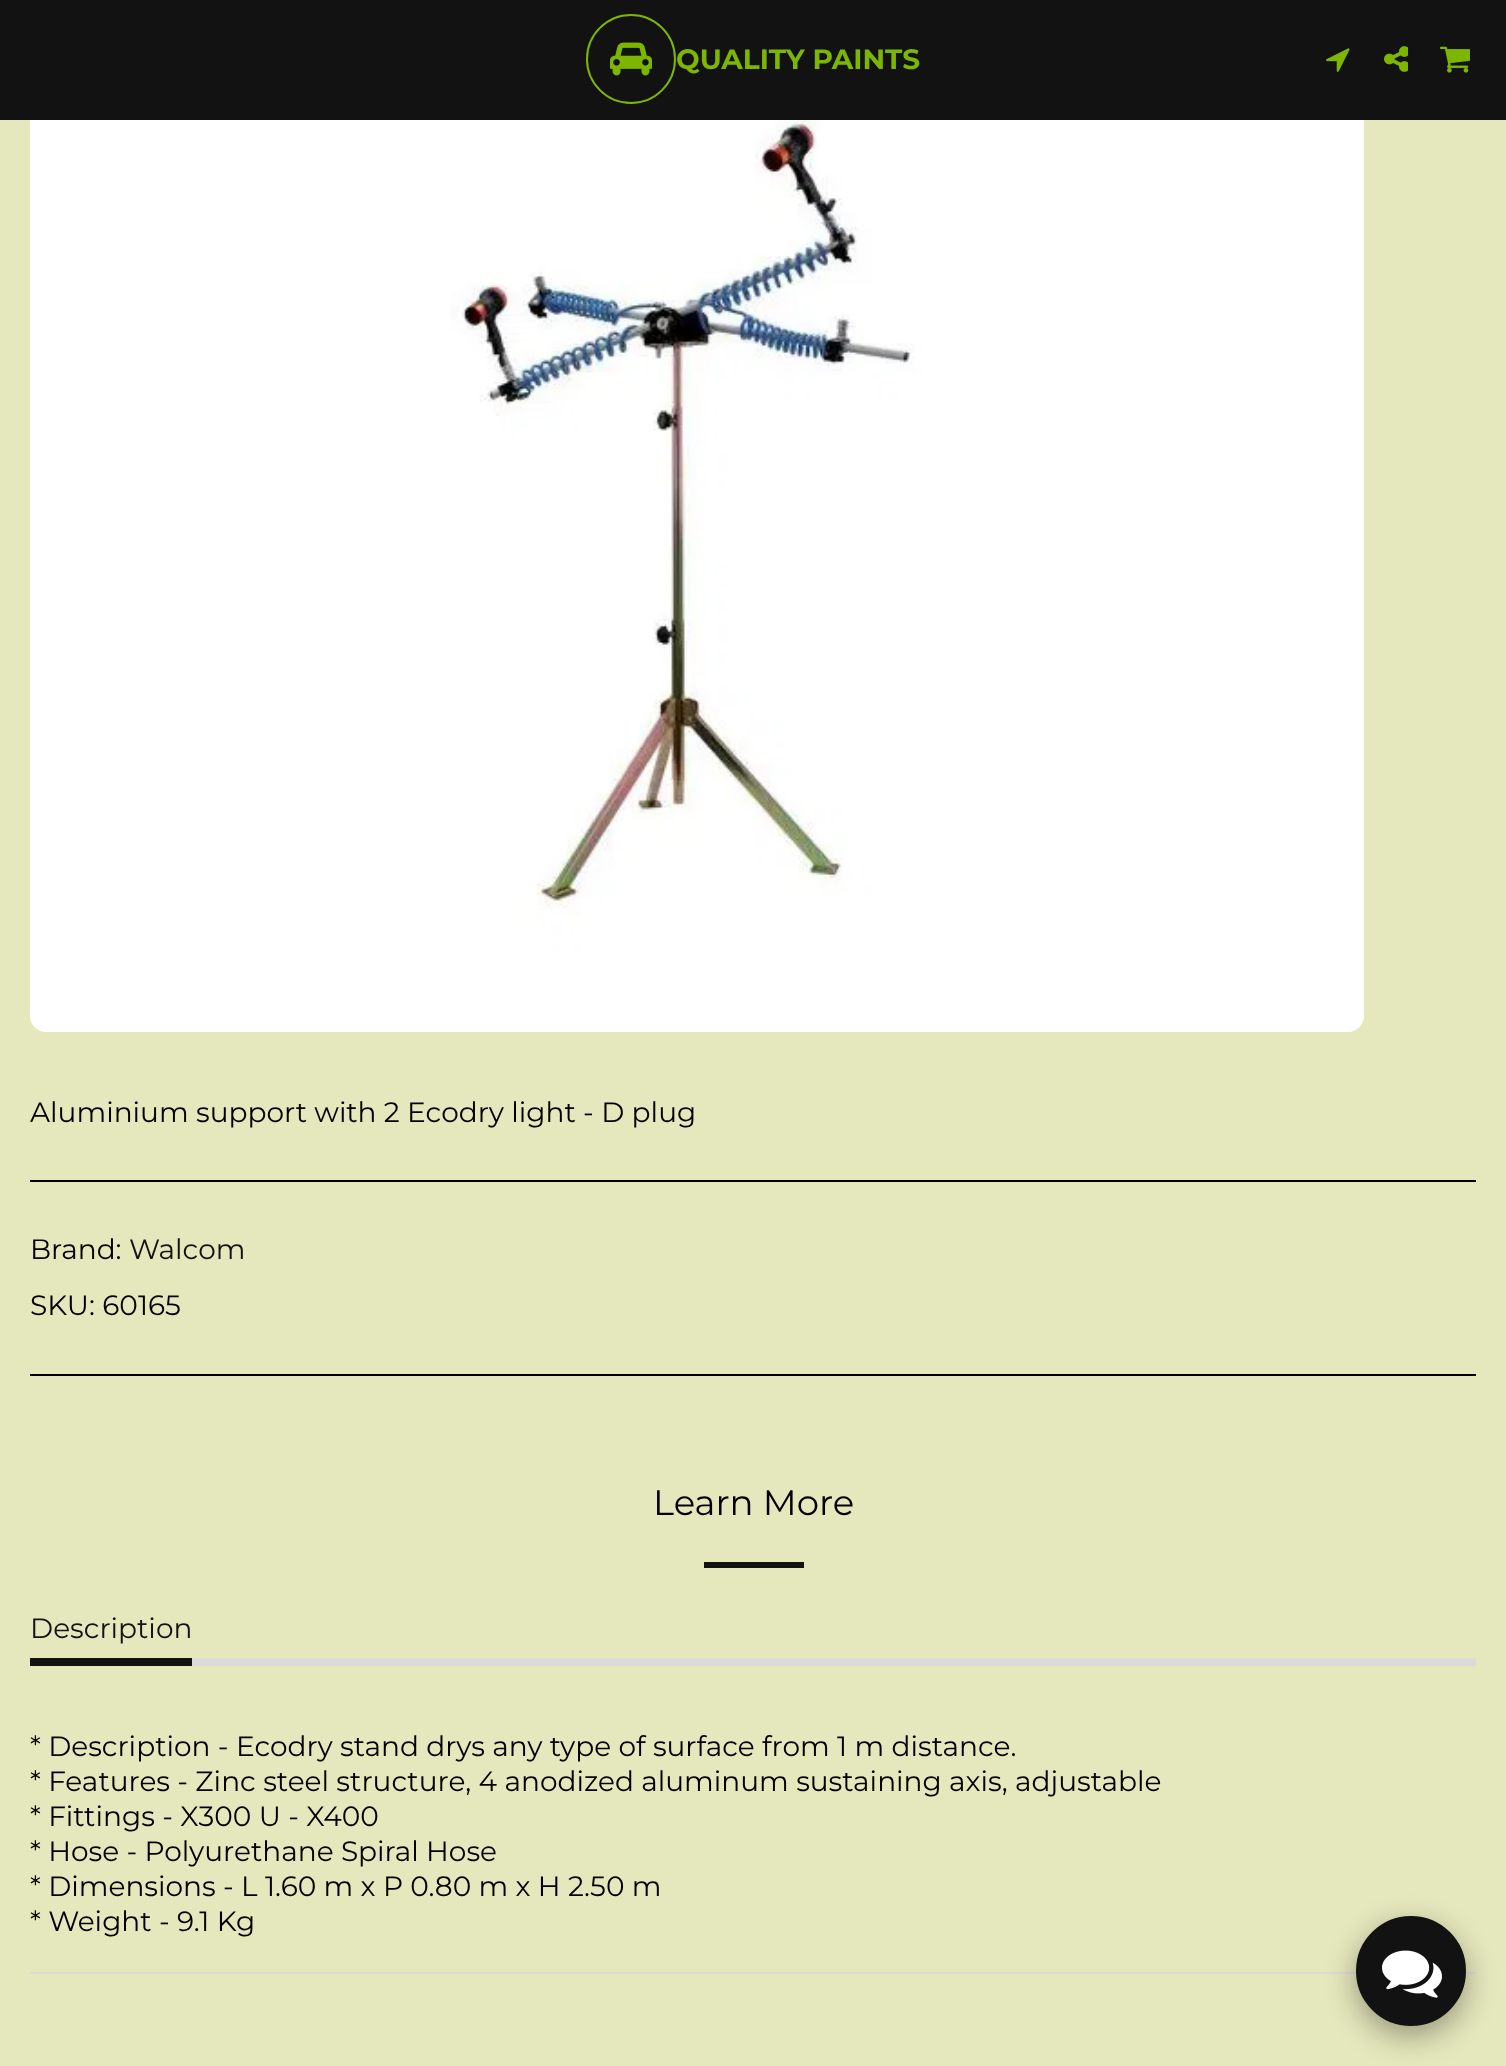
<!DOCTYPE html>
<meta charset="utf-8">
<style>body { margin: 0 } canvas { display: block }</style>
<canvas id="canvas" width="1506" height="2066"></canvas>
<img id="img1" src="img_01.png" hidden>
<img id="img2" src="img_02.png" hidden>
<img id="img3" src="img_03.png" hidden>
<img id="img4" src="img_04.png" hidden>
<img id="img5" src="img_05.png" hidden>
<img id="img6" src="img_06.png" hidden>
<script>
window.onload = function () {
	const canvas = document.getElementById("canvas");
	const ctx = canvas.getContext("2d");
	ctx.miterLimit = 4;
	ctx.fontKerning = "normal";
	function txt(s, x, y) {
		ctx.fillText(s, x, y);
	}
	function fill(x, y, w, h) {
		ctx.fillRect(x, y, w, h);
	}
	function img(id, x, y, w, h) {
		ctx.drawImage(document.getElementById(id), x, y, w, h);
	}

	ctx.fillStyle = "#E5E8BC";
	fill(0, 0, 1506, 2066);
	ctx.fillStyle = "#121212";
	fill(0, 0, 1506, 120);
	ctx.beginPath();
	ctx.arc(631, 59, 44, 0, Math.PI * 2);
	ctx.strokeStyle = "#7CB600";
	ctx.lineWidth = 2;
	ctx.stroke();
	img("img1", 610, 42, 42, 34);
	img("img2", 1326, 48, 24, 24);
	img("img3", 1384, 46, 24, 26);
	img("img4", 1440, 46, 30, 27);
	img("img5", 30, 120, 1334, 912);
	ctx.fillStyle = "#000000";
	fill(30, 1180, 1446, 2);
	fill(30, 1374, 1446, 2);
	ctx.fillStyle = "#121212";
	fill(704, 1562, 100, 6);
	ctx.fillStyle = "#DBDBDB";
	fill(192, 1658, 1284, 8);
	ctx.fillStyle = "#121212";
	fill(30, 1658, 162, 8);
	ctx.fillStyle = "#DBDBDB";
	fill(30, 1972, 1446, 2);
	ctx.fillStyle = "rgba(0, 0, 0, 0.35)";
	ctx.filter = "blur(15px)";
	ctx.beginPath();
	ctx.roundRect(1356, 1926, 110, 110, 55);
	ctx.fill();
	ctx.filter = "none";
	ctx.fillStyle = "#121212";
	ctx.beginPath();
	ctx.arc(1411, 1971, 54, 0, Math.PI * 2);
	ctx.fill();
	ctx.strokeStyle = "#121212";
	ctx.stroke();
	img("img6", 1382, 1950, 60, 48);
	ctx.font = "bold 28px Montserrat";
	ctx.fillStyle = "#7CB600";
	txt("QUALITY PAINTS", 676, 69);
	ctx.font = "28px Montserrat";
	ctx.fillStyle = "#000000";
	txt("Aluminium support with 2 Ecodry light - D plug", 30, 1122);
	txt("Brand:", 30, 1259);
	ctx.fillStyle = "#121212";
	txt("Walcom", 129, 1259);
	ctx.fillStyle = "#000000";
	txt("SKU: 60165", 30, 1315);
	ctx.font = "35.5px Montserrat";
	txt("Learn More", 653, 1515);
	ctx.font = "28px Montserrat";
	ctx.fillStyle = "#121212";
	txt("Description", 30, 1638);
	ctx.fillStyle = "#000000";
	txt("* Description - Ecodry stand drys any type of surface from 1 m distance.", 30, 1756);
	txt("* Features - Zinc steel structure, 4 anodized aluminum sustaining axis, adjustable", 30, 1791);
	txt("* Fittings - X300 U - X400", 30, 1826);
	txt("* Hose - Polyurethane Spiral Hose", 30, 1861);
	txt("* Dimensions - L 1.60 m x P 0.80 m x H 2.50 m", 30, 1896);
	txt("* Weight - 9.1 Kg", 30, 1931);
};
</script>
